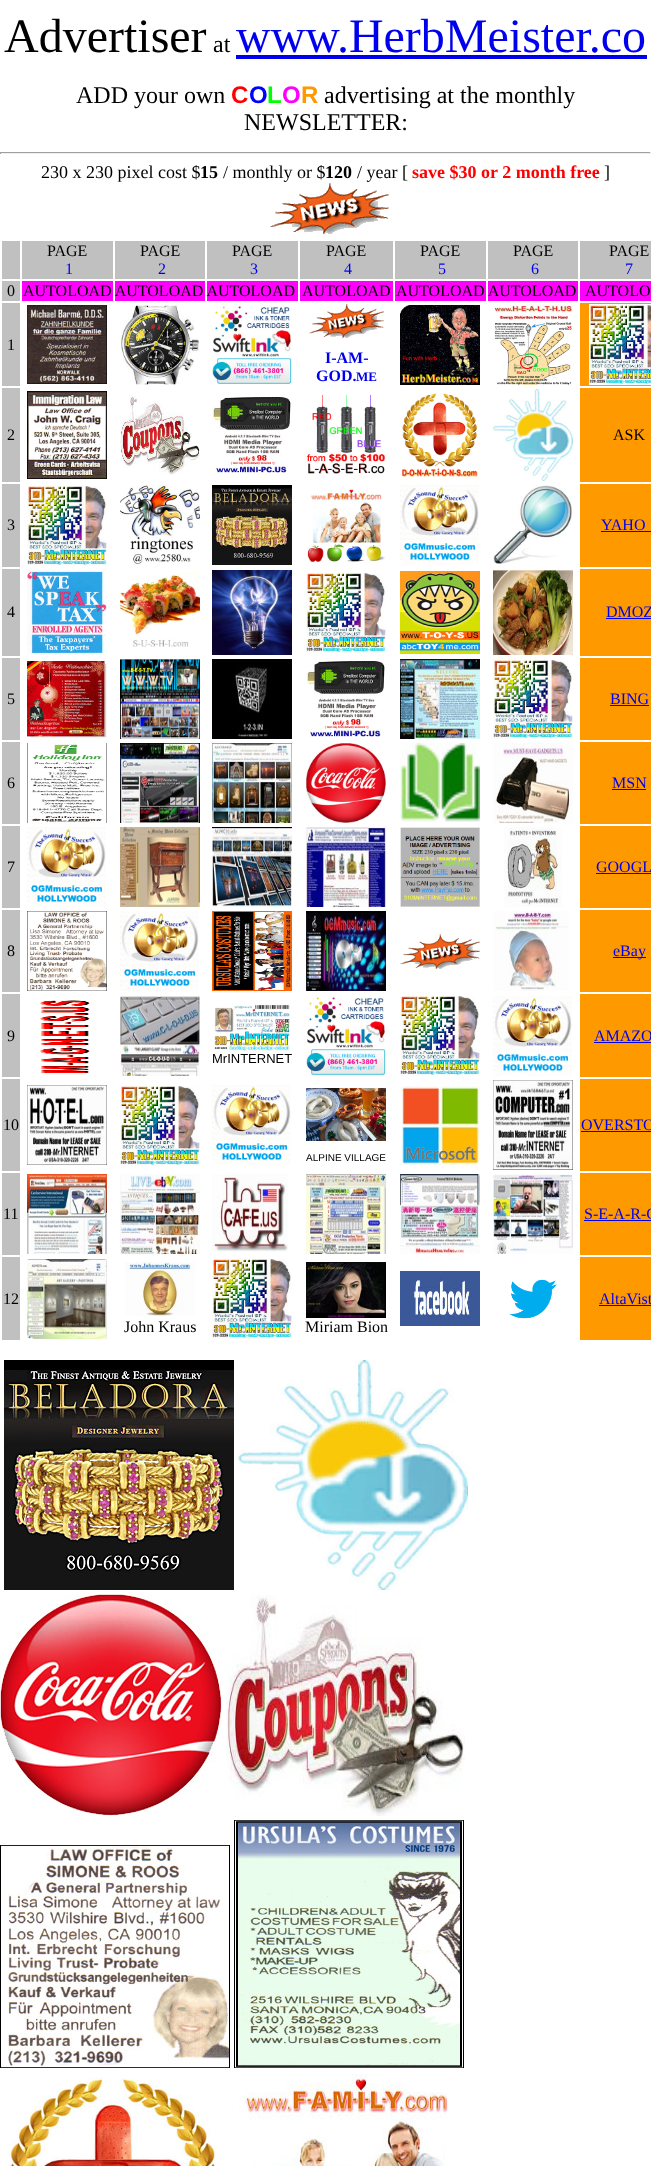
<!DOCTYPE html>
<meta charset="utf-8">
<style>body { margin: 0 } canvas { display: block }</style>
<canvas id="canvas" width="651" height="2166"></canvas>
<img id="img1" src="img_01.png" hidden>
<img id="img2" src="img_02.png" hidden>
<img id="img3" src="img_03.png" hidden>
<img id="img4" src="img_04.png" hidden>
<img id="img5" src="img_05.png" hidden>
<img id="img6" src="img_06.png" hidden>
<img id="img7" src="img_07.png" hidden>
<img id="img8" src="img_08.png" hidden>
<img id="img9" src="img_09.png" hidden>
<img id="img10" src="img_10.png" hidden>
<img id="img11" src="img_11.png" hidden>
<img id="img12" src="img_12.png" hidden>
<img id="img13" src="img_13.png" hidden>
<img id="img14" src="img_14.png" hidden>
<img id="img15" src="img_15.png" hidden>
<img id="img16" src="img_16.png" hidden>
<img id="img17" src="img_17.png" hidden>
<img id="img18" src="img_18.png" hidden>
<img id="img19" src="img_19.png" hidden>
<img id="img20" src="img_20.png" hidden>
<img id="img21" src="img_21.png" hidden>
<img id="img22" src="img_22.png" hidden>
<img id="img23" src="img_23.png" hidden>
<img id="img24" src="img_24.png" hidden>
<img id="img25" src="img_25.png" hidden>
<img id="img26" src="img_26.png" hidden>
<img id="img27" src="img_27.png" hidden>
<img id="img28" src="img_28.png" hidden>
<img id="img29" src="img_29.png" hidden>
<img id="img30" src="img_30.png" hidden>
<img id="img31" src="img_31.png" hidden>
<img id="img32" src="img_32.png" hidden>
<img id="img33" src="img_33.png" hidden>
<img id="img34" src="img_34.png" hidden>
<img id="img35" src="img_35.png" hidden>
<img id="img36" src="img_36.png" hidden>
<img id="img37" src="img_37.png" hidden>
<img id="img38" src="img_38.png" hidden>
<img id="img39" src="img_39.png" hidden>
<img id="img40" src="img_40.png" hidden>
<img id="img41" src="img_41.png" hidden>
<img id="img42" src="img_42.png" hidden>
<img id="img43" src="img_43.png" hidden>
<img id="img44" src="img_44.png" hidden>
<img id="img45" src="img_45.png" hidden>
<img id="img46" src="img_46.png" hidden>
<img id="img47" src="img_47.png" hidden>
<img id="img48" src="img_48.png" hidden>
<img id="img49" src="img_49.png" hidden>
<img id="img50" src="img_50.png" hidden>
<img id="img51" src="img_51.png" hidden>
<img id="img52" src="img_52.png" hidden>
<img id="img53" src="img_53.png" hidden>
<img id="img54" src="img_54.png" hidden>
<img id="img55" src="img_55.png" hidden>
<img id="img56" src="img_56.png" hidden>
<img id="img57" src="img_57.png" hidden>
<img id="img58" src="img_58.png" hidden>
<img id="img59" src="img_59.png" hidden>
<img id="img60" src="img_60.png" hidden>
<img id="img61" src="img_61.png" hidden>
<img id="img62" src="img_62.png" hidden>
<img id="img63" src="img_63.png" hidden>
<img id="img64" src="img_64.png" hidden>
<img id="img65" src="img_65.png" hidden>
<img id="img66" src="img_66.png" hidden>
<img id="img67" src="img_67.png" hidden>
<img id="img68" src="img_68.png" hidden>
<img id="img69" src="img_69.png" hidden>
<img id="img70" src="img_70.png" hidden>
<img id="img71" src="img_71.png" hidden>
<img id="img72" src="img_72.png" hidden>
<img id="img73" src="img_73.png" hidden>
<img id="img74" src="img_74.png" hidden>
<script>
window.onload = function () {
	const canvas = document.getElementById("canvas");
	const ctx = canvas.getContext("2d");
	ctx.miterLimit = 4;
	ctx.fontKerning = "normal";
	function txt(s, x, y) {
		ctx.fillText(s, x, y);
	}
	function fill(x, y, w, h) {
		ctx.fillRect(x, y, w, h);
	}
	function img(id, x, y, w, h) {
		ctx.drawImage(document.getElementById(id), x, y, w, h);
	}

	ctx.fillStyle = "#FFFFFF";
	fill(0, 0, 651, 2166);
	ctx.fillStyle = "#0000EE";
	fill(236, 55, 411, 4);
	ctx.fillStyle = "#9F9F9F";
	fill(0, 152, 651, 1);
	ctx.fillStyle = "#EEEEEE";
	fill(650, 152, 1, 2);
	fill(0, 153, 651, 1);
	ctx.fillStyle = "#9F9F9F";
	fill(0, 152, 1, 2);
	img("img1", 270, 183, 119, 51);
	ctx.fillStyle = "#C0C0C0";
	fill(2, 241, 18, 38);
	fill(22, 241, 91, 38);
	fill(115, 241, 90, 38);
	fill(207, 241, 91, 38);
	fill(300, 241, 93, 38);
	fill(395, 241, 91, 38);
	fill(488, 241, 90, 38);
	fill(580, 241, 71, 38);
	fill(2, 281, 18, 20);
	ctx.fillStyle = "#FF00FF";
	fill(115, 281, 90, 20);
	fill(207, 281, 91, 20);
	fill(488, 281, 90, 20);
	fill(22, 281, 91, 20);
	fill(300, 281, 93, 20);
	fill(395, 281, 91, 20);
	fill(580, 281, 71, 20);
	ctx.fillStyle = "#C0C0C0";
	fill(2, 303, 18, 83);
	img("img2", 27, 305, 80, 79);
	img("img3", 121, 305, 78, 80);
	img("img4", 212, 306, 80, 78);
	img("img5", 400, 305, 80, 80);
	img("img6", 494, 305, 79, 80);
	ctx.fillStyle = "#FF9900";
	fill(580, 303, 71, 83);
	img("img7", 589, 304, 62, 81);
	img("img8", 309, 304, 75, 34);
	ctx.fillStyle = "#C0C0C0";
	fill(2, 388, 18, 94);
	img("img9", 27, 391, 80, 88);
	img("img10", 120, 396, 80, 79);
	img("img11", 212, 397, 79, 76);
	img("img12", 306, 395, 80, 80);
	img("img13", 401, 393, 77, 84);
	img("img14", 493, 389, 80, 92);
	ctx.fillStyle = "#FF9900";
	fill(580, 388, 71, 94);
	ctx.fillStyle = "#C0C0C0";
	fill(2, 484, 18, 83);
	img("img15", 27, 486, 80, 80);
	img("img16", 120, 485, 80, 80);
	img("img17", 212, 485, 80, 80);
	img("img18", 307, 488, 78, 75);
	img("img19", 400, 485, 79, 80);
	img("img20", 493, 485, 79, 79);
	ctx.fillStyle = "#FF9900";
	fill(580, 484, 71, 83);
	ctx.fillStyle = "#0000EE";
	fill(601, 531, 50, 1);
	ctx.fillStyle = "#C0C0C0";
	fill(2, 569, 18, 87);
	img("img21", 27, 570, 80, 85);
	img("img22", 120, 572, 80, 75);
	img("img23", 212, 570, 80, 85);
	img("img24", 306, 573, 80, 80);
	img("img25", 400, 571, 80, 83);
	img("img26", 493, 570, 80, 85);
	ctx.fillStyle = "#FF9900";
	fill(580, 569, 71, 87);
	ctx.fillStyle = "#0000EE";
	fill(606, 618, 45, 1);
	ctx.fillStyle = "#C0C0C0";
	fill(2, 658, 18, 82);
	img("img27", 27, 661, 80, 77);
	img("img28", 120, 659, 80, 80);
	img("img29", 212, 659, 80, 80);
	img("img11", 306, 661, 79, 76);
	img("img30", 400, 659, 80, 80);
	img("img31", 493, 660, 80, 79);
	ctx.fillStyle = "#FF9900";
	fill(580, 658, 71, 82);
	ctx.fillStyle = "#0000EE";
	fill(610, 705, 39, 1);
	ctx.fillStyle = "#C0C0C0";
	fill(2, 742, 18, 82);
	img("img32", 27, 743, 80, 80);
	img("img33", 120, 743, 80, 80);
	img("img34", 212, 743, 80, 80);
	img("img35", 306, 743, 80, 80);
	img("img36", 400, 743, 80, 79);
	img("img37", 493, 743, 80, 80);
	ctx.fillStyle = "#FF9900";
	fill(580, 742, 71, 82);
	ctx.fillStyle = "#0000EE";
	fill(612, 789, 34, 1);
	ctx.fillStyle = "#C0C0C0";
	fill(2, 826, 18, 82);
	img("img19", 27, 827, 79, 80);
	img("img38", 120, 827, 80, 80);
	img("img39", 212, 827, 80, 80);
	img("img40", 306, 827, 80, 80);
	img("img41", 400, 827, 80, 80);
	img("img42", 504, 827, 58, 80);
	ctx.fillStyle = "#FF9900";
	fill(580, 826, 71, 82);
	ctx.fillStyle = "#0000EE";
	fill(596, 873, 55, 1);
	ctx.fillStyle = "#C0C0C0";
	fill(2, 910, 18, 82);
	img("img43", 27, 911, 80, 80);
	img("img19", 120, 911, 79, 80);
	img("img44", 212, 911, 80, 80);
	img("img45", 306, 911, 80, 80);
	img("img46", 400, 934, 80, 35);
	img("img47", 493, 911, 76, 80);
	ctx.fillStyle = "#FF9900";
	fill(580, 910, 71, 82);
	ctx.fillStyle = "#0000EE";
	fill(613, 957, 33, 1);
	ctx.fillStyle = "#C0C0C0";
	fill(2, 994, 18, 83);
	img("img48", 39, 1000, 51, 73);
	img("img49", 120, 996, 80, 80);
	img("img4", 306, 997, 80, 78);
	img("img50", 400, 996, 80, 80);
	img("img19", 493, 996, 79, 80);
	ctx.fillStyle = "#FF9900";
	fill(580, 994, 71, 83);
	ctx.fillStyle = "#0000EE";
	fill(594, 1042, 57, 1);
	img("img51", 214, 1005, 76, 46);
	ctx.fillStyle = "#C0C0C0";
	fill(2, 1079, 18, 92);
	img("img52", 27, 1085, 80, 80);
	img("img50", 120, 1086, 80, 80);
	img("img19", 212, 1085, 79, 80);
	img("img53", 401, 1086, 79, 79);
	img("img54", 493, 1080, 80, 90);
	ctx.fillStyle = "#FF9900";
	fill(580, 1079, 71, 92);
	ctx.fillStyle = "#0000EE";
	fill(581, 1131, 70, 1);
	img("img55", 306, 1088, 80, 53);
	ctx.fillStyle = "#C0C0C0";
	fill(2, 1173, 18, 82);
	img("img56", 27, 1174, 80, 80);
	img("img57", 120, 1174, 80, 80);
	img("img58", 212, 1174, 76, 78);
	img("img59", 306, 1174, 80, 80);
	img("img60", 400, 1174, 80, 80);
	img("img61", 493, 1174, 80, 80);
	ctx.fillStyle = "#FF9900";
	fill(580, 1173, 71, 82);
	ctx.fillStyle = "#0000EE";
	fill(584, 1220, 67, 1);
	ctx.fillStyle = "#C0C0C0";
	fill(2, 1257, 18, 83);
	img("img62", 27, 1259, 80, 80);
	img("img50", 212, 1259, 80, 80);
	img("img63", 400, 1271, 80, 55);
	img("img64", 509, 1279, 48, 40);
	ctx.fillStyle = "#FF9900";
	fill(580, 1257, 71, 83);
	ctx.fillStyle = "#0000EE";
	fill(599, 1305, 52, 1);
	img("img65", 125, 1262, 70, 54);
	img("img66", 306, 1262, 80, 56);
	img("img67", 4, 1360, 230, 230);
	img("img68", 238, 1360, 230, 230);
	img("img69", 0, 1594, 222, 222);
	img("img70", 226, 1595, 239, 221);
	img("img71", 0, 1845, 230, 223);
	img("img72", 234, 1820, 230, 248);
	img("img73", 6, 2078, 215, 88);
	img("img74", 239, 2074, 209, 92);
	ctx.font = "48px Liberation Serif";
	ctx.fillStyle = "#000000";
	txt("Advertiser", 4, 52);
	ctx.font = "24px Liberation Serif";
	txt("at", 213, 52);
	ctx.font = "48px Liberation Serif";
	ctx.fillStyle = "#0000EE";
	txt("www.HerbMeister.co", 236, 52);
	ctx.font = "24px Liberation Serif";
	ctx.fillStyle = "#000000";
	txt("ADD your own", 76, 103);
	ctx.font = "bold 24px Liberation Sans";
	ctx.fillStyle = "#FF0000";
	txt("C", 231, 103);
	ctx.fillStyle = "#0000FF";
	txt("O", 249, 103);
	ctx.fillStyle = "#00FF00";
	txt("L", 267, 103);
	ctx.fillStyle = "#FF00FF";
	txt("O", 282, 103);
	ctx.fillStyle = "#FF9900";
	txt("R", 301, 103);
	ctx.font = "24px Liberation Serif";
	ctx.fillStyle = "#000000";
	txt("advertising at the monthly", 324, 103);
	txt("NEWSLETTER:", 244, 130);
	ctx.font = "18px Liberation Serif";
	txt("230 x 230 pixel cost $", 41, 178);
	ctx.font = "bold 18px Liberation Serif";
	txt("15", 200, 178);
	ctx.font = "18px Liberation Serif";
	txt("/ monthly or $", 223, 178);
	ctx.font = "bold 18px Liberation Serif";
	txt("120", 325, 178);
	ctx.font = "18px Liberation Serif";
	txt("/ year [", 357, 178);
	ctx.font = "bold 18px Liberation Serif";
	ctx.fillStyle = "#FF0000";
	txt("save $30 or 2 month free", 412, 178);
	ctx.font = "18px Liberation Serif";
	ctx.fillStyle = "#000000";
	txt("]", 604, 178);
	ctx.font = "16px Liberation Serif";
	txt("PAGE", 47, 256);
	ctx.fillStyle = "#0000EE";
	txt("1", 65, 274);
	ctx.fillStyle = "#000000";
	txt("PAGE", 140, 256);
	ctx.fillStyle = "#0000EE";
	txt("2", 158, 274);
	ctx.fillStyle = "#000000";
	txt("PAGE", 232, 256);
	ctx.fillStyle = "#0000EE";
	txt("3", 250, 274);
	ctx.fillStyle = "#000000";
	txt("PAGE", 326, 256);
	ctx.fillStyle = "#0000EE";
	txt("4", 344, 274);
	ctx.fillStyle = "#000000";
	txt("PAGE", 420, 256);
	ctx.fillStyle = "#0000EE";
	txt("5", 438, 274);
	ctx.fillStyle = "#000000";
	txt("PAGE", 513, 256);
	ctx.fillStyle = "#0000EE";
	txt("6", 531, 274);
	ctx.fillStyle = "#000000";
	txt("PAGE", 609, 256);
	ctx.fillStyle = "#0000EE";
	txt("7", 625, 274);
	ctx.fillStyle = "#000000";
	txt("0", 7, 296);
	txt("AUTOLOAD AUTOLOAD AUTOLOAD", 23, 296);
	txt("AUTOLOAD", 302, 296);
	txt("AUTOLOAD AUTOLOAD", 396, 296);
	txt("AUTOLO", 585, 296);
	txt("1", 7, 350);
	ctx.font = "bold 16px Liberation Serif";
	ctx.fillStyle = "#0000EE";
	txt("I-AM-", 325, 363);
	txt("GOD.", 316, 381);
	ctx.font = "bold 13px Liberation Serif";
	txt("ME", 356, 381);
	ctx.font = "16px Liberation Serif";
	ctx.fillStyle = "#000000";
	txt("2", 7, 440);
	txt("ASK", 613, 440);
	txt("3", 7, 530);
	ctx.fillStyle = "#0000EE";
	txt("YAHO", 601, 530);
	ctx.fillStyle = "#000000";
	txt("4", 7, 617);
	ctx.fillStyle = "#0000EE";
	txt("DMOZ", 606, 617);
	ctx.fillStyle = "#000000";
	txt("5", 7, 704);
	ctx.fillStyle = "#0000EE";
	txt("BING", 610, 704);
	ctx.fillStyle = "#000000";
	txt("6", 7, 788);
	ctx.fillStyle = "#0000EE";
	txt("MSN", 612, 788);
	ctx.fillStyle = "#000000";
	txt("7", 7, 872);
	ctx.fillStyle = "#0000EE";
	txt("GOOGL", 596, 872);
	ctx.fillStyle = "#000000";
	txt("8", 7, 956);
	ctx.fillStyle = "#0000EE";
	txt("eBay", 613, 956);
	ctx.fillStyle = "#000000";
	txt("9", 7, 1041);
	ctx.fillStyle = "#0000EE";
	txt("AMAZO", 594, 1041);
	ctx.font = "13px Liberation Sans";
	ctx.fillStyle = "#000000";
	txt("MrINTERNET", 212, 1063);
	ctx.font = "16px Liberation Serif";
	txt("10", 3, 1130);
	ctx.fillStyle = "#0000EE";
	txt("OVERSTO", 581, 1130);
	ctx.font = "10px Liberation Sans";
	ctx.fillStyle = "#000000";
	txt("ALPINE VILLAGE", 306, 1161);
	ctx.font = "16px Liberation Serif";
	txt("11", 3, 1219);
	ctx.fillStyle = "#0000EE";
	txt("S-E-A-R-C", 584, 1219);
	ctx.fillStyle = "#000000";
	txt("12", 3, 1304);
	ctx.fillStyle = "#0000EE";
	txt("AltaVist", 599, 1304);
	ctx.fillStyle = "#000000";
	txt("John Kraus", 124, 1332);
	txt("Miriam Bion", 305, 1332);
};
</script>
